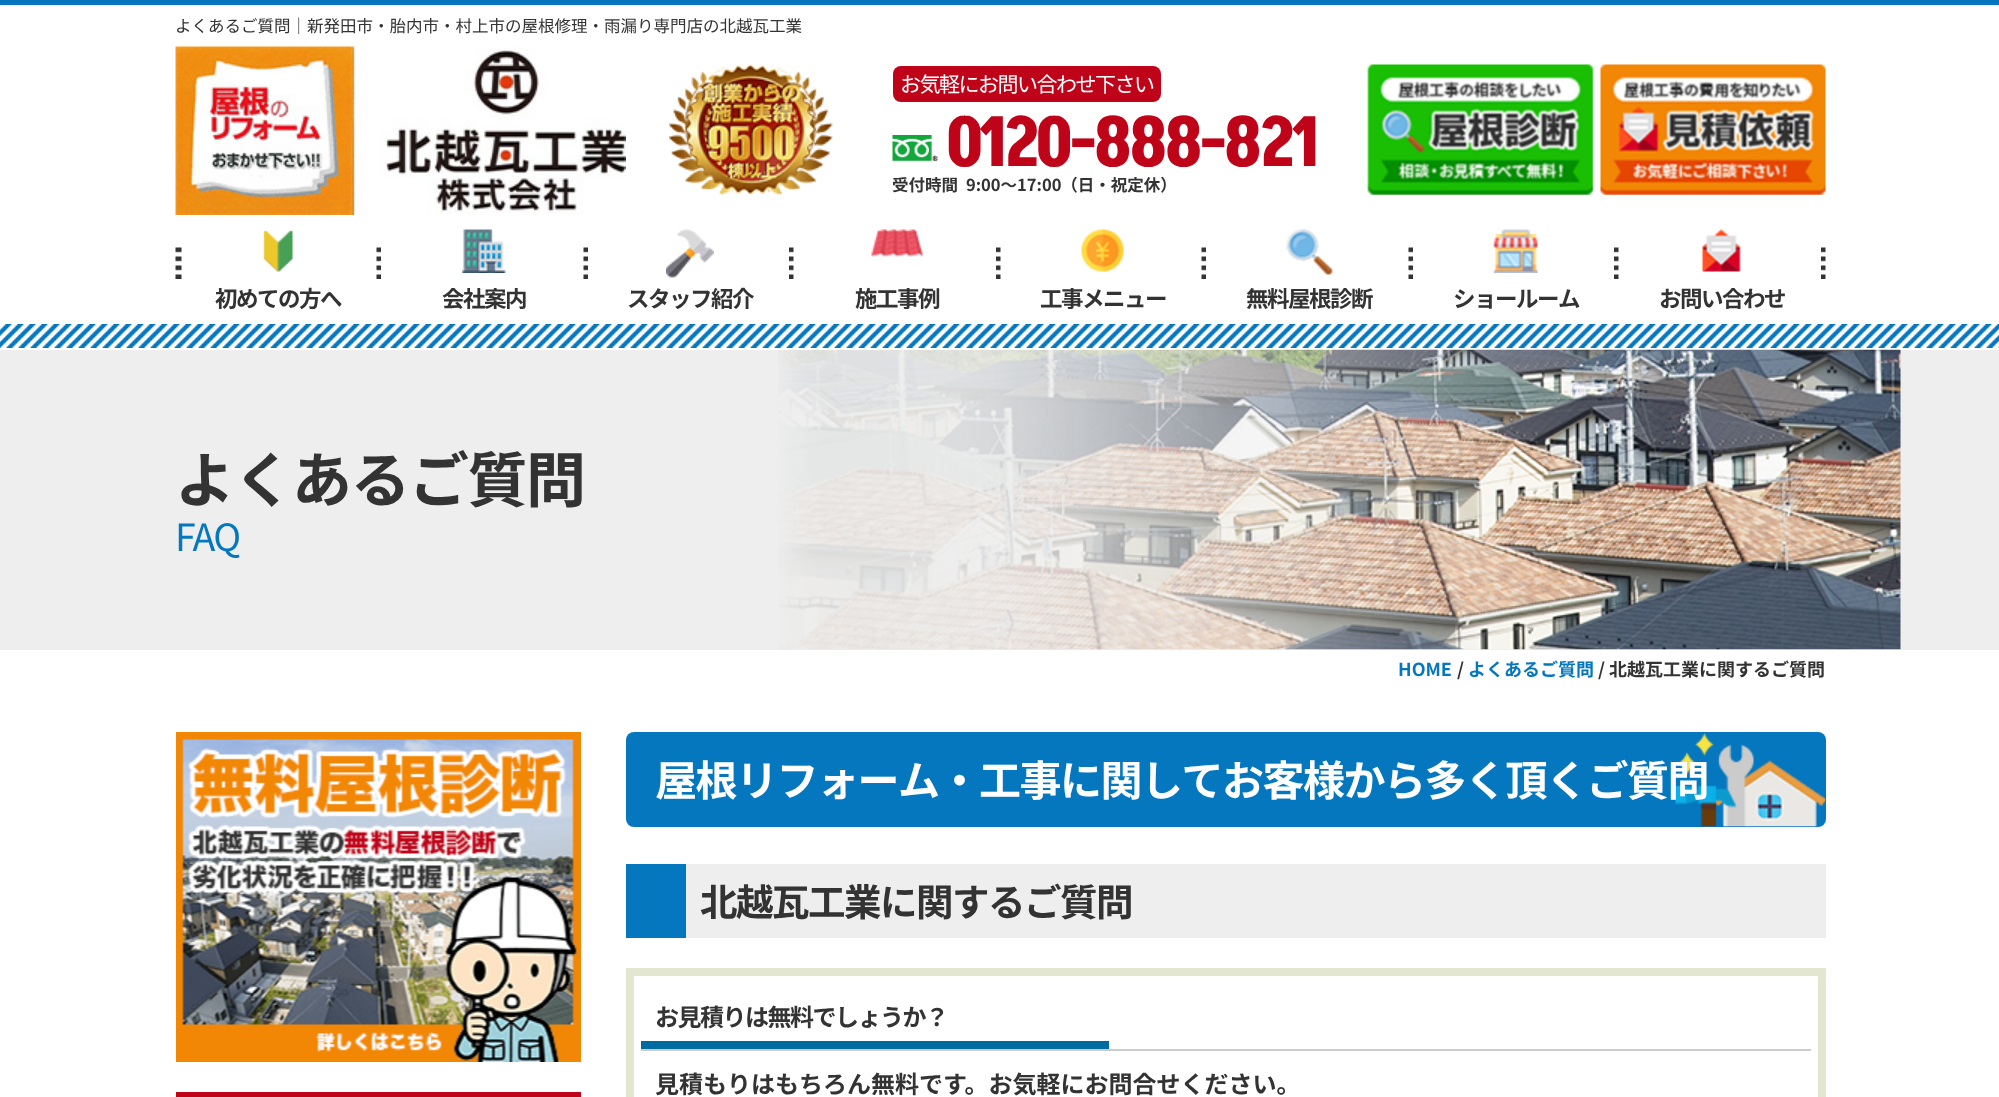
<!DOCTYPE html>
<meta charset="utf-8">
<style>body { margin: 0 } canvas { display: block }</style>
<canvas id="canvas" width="1999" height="1097"></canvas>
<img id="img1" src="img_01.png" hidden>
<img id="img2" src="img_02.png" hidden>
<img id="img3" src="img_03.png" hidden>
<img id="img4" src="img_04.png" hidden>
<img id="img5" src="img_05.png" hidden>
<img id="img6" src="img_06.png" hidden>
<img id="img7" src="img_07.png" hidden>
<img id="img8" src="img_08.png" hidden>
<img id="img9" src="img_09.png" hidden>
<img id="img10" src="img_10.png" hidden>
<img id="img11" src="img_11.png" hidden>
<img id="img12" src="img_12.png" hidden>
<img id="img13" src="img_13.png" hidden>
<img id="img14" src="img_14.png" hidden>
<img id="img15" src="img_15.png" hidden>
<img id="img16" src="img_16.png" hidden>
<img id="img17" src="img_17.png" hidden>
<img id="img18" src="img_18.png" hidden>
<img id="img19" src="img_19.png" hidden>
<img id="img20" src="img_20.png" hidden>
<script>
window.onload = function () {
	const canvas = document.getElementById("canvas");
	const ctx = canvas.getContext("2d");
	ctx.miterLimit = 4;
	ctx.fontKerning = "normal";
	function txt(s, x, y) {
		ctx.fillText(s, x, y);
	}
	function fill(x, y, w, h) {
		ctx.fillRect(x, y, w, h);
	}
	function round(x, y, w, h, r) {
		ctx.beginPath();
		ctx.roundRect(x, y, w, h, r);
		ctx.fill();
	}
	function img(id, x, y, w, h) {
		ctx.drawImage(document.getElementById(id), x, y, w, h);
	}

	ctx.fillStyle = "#FFFFFF";
	fill(0, 0, 1999, 1097);
	ctx.fillStyle = "#0477BF";
	fill(0, 0, 1999, 5);
	img("img1", 175, 46, 451, 169);
	img("img2", 669, 64, 164, 131);
	ctx.fillStyle = "#BF041A";
	round(893, 66, 268, 36, 8);
	img("img3", 892, 135, 46, 27);
	img("img4", 1367, 64, 227, 131);
	img("img5", 1600, 64, 226, 131);
	img("img6", 0, 324, 1999, 24);
	img("img7", 175, 247, 7, 32);
	img("img8", 376, 247, 5, 32);
	img("img9", 263, 230, 31, 43);
	img("img8", 583, 247, 5, 32);
	img("img10", 462, 229, 44, 44);
	img("img11", 789, 247, 5, 32);
	img("img12", 666, 229, 48, 49);
	img("img11", 996, 247, 5, 32);
	img("img13", 871, 229, 52, 28);
	img("img8", 1201, 247, 5, 32);
	img("img14", 1081, 229, 43, 43);
	img("img8", 1408, 247, 5, 32);
	img("img15", 1286, 229, 47, 46);
	img("img11", 1614, 247, 5, 32);
	img("img16", 1493, 229, 45, 44);
	img("img11", 1821, 247, 5, 32);
	img("img17", 1702, 229, 39, 43);
	ctx.fillStyle = "#EEEEEE";
	fill(0, 350, 1999, 300);
	img("img18", 778, 349, 1123, 301);
	img("img19", 176, 732, 405, 330);
	ctx.fillStyle = "#BF041A";
	fill(176, 1092, 405, 5);
	ctx.fillStyle = "#0477BF";
	round(626, 732, 1200, 95, 8);
	img("img20", 1675, 733, 151, 94);
	ctx.fillStyle = "#EEEEEE";
	fill(686, 864, 1140, 74);
	ctx.fillStyle = "#0477BF";
	fill(626, 864, 60, 74);
	ctx.strokeStyle = "#E4E7CF";
	ctx.lineWidth = 8;
	ctx.strokeRect(630, 972, 1192, 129);
	ctx.fillStyle = "#CCCCCC";
	fill(641, 1049, 1170, 2);
	ctx.fillStyle = "#006BA1";
	fill(641, 1041, 468, 8);
	ctx.font = "16.5px Noto Sans JP";
	ctx.fillStyle = "#333333";
	txt("よくあるご質問｜新発田市・胎内市・村上市の屋根修理・雨漏り専門店の北越瓦工業", 175, 32);
	ctx.letterSpacing = "-1.5px";
	ctx.font = "21px Noto Sans JP";
	ctx.fillStyle = "#FFFFFF";
	txt("お気軽にお問い合わせ下さい", 900, 92);
	ctx.letterSpacing = "-5.25px";
	ctx.font = "300 69px Akshar";
	ctx.fillStyle = "#BF041A";
	txt("0120-888-821", 945, 166);
	ctx.letterSpacing = "0px";
	ctx.font = "bold 16.5px Noto Sans JP";
	ctx.fillStyle = "#333333";
	txt("受付時間", 892, 191);
	txt("9:00～17:00（日・祝定休）", 966, 191);
	ctx.letterSpacing = "-1.5px";
	ctx.font = "bold 22.5px Noto Sans JP";
	txt("初めての方へ", 215, 307);
	txt("会社案内", 442, 307);
	txt("スタッフ紹介", 627, 307);
	txt("施工事例", 855, 307);
	txt("工事メニュー", 1040, 307);
	txt("無料屋根診断", 1246, 307);
	txt("ショールーム", 1453, 307);
	txt("お問い合わせ", 1659, 307);
	ctx.font = "bold 60px Noto Sans JP";
	txt("よくあるご質問", 175, 502);
	ctx.font = "37.5px Noto Sans JP";
	ctx.fillStyle = "#0477BF";
	txt("FAQ", 175, 551);
	ctx.letterSpacing = "0px";
	ctx.font = "bold 18px Noto Sans JP";
	txt("HOME", 1398, 676);
	ctx.fillStyle = "#333333";
	txt("/", 1457, 676);
	ctx.fillStyle = "#0477BF";
	txt("よくあるご質問", 1468, 676);
	ctx.fillStyle = "#333333";
	txt("/ 北越瓦工業に関するご質問", 1598, 676);
	ctx.letterSpacing = "-1.5px";
	ctx.font = "bold 42px Noto Sans JP";
	ctx.fillStyle = "#FFFFFF";
	txt("屋根リフォーム・工事に関してお客様から多く頂くご質問", 655, 796);
	ctx.font = "bold 37.5px Noto Sans JP";
	ctx.fillStyle = "#333333";
	txt("北越瓦工業に関するご質問", 700, 916);
	ctx.font = "bold 24px Noto Sans JP";
	txt("お見積りは無料でしょうか？", 655, 1026);
	ctx.letterSpacing = "0px";
	txt("見積もりはもちろん無料です。お気軽にお問合せください。", 655, 1093);
};
</script>
